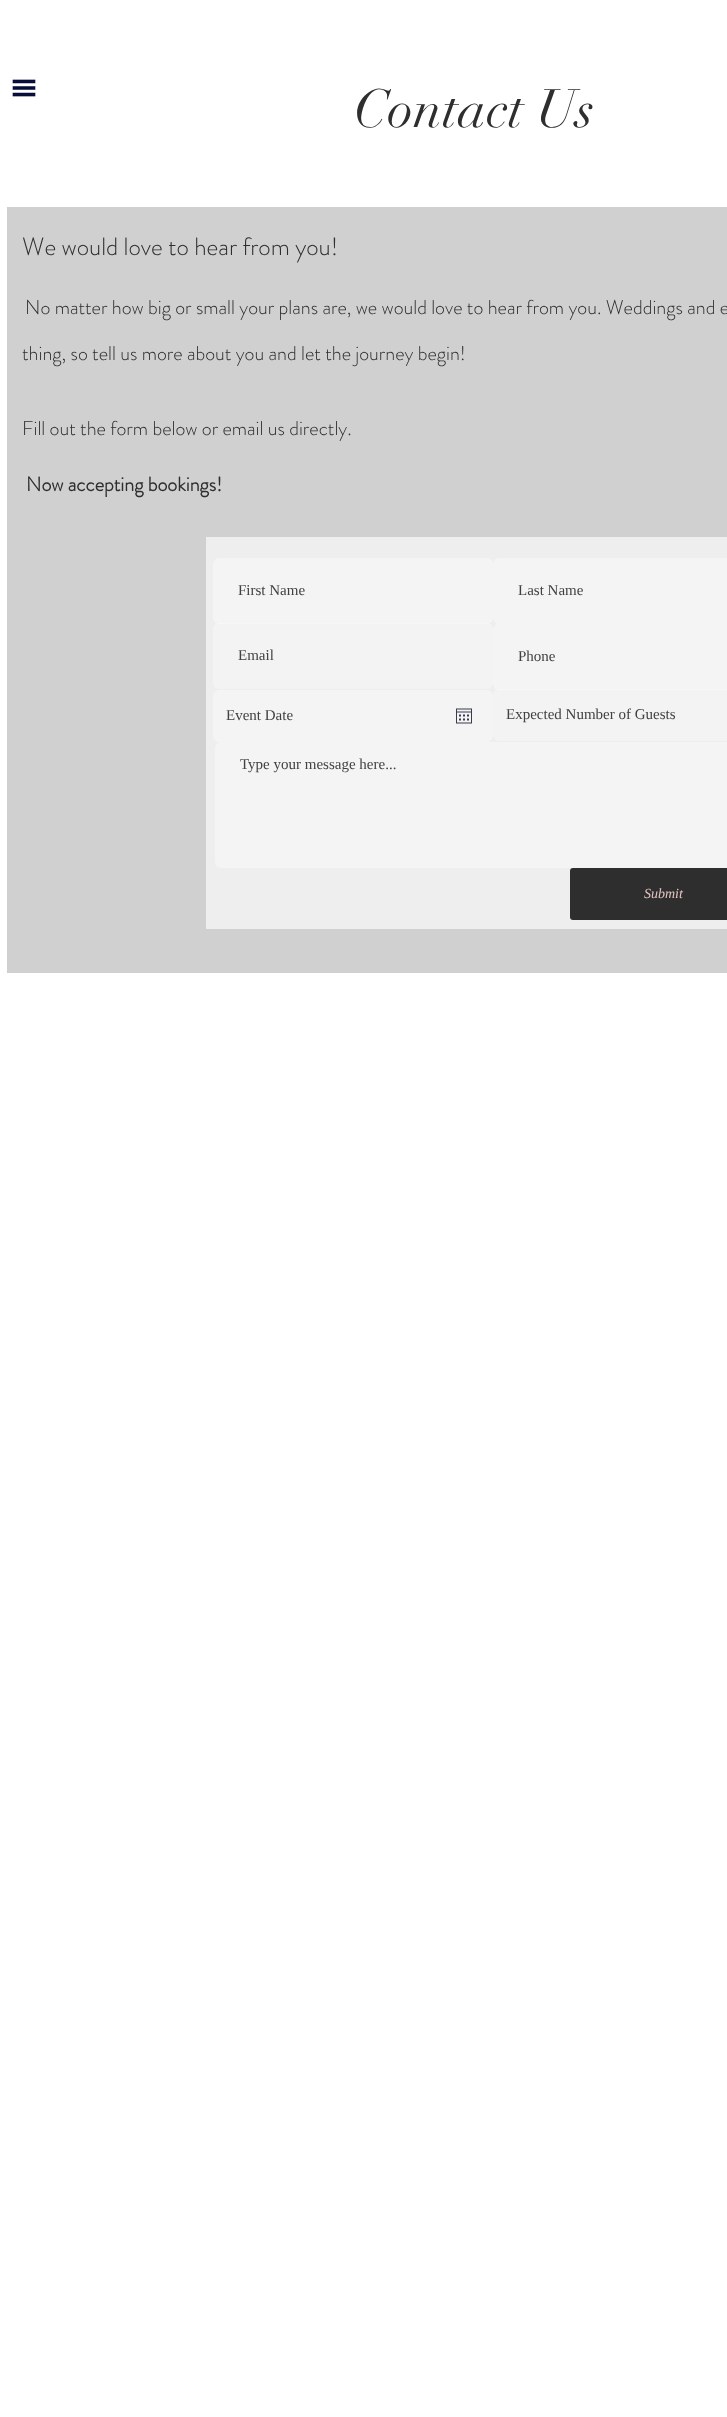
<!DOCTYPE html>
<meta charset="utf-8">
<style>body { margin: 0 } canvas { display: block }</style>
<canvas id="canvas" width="727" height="2417"></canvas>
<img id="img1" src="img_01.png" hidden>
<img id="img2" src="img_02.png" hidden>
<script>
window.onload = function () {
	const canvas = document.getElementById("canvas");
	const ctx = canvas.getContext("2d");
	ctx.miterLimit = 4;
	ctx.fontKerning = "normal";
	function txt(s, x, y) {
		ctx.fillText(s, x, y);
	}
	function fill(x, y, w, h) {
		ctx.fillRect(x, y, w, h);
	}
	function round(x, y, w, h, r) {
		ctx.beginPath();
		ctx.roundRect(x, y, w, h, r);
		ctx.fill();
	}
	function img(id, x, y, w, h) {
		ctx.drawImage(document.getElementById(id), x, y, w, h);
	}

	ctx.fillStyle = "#FFFFFF";
	fill(0, 0, 727, 2417);
	img("img1", 12, 79, 24, 18);
	ctx.fillStyle = "#D0D0D0";
	fill(7, 207, 720, 766);
	ctx.fillStyle = "#EEEEEE";
	fill(206, 537, 521, 392);
	ctx.fillStyle = "#F4F4F4";
	round(213, 558, 280, 66, 6);
	round(493, 558, 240, 66, 6);
	ctx.fillStyle = "rgba(255, 255, 255, 0.33)";
	round(213, 623, 280, 66, 6);
	ctx.fillStyle = "#F4F4F4";
	round(493, 624, 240, 66, 6);
	round(213, 690, 280, 52, 6);
	img("img2", 456, 708, 16, 16);
	ctx.fillStyle = "rgba(255, 255, 255, 0.33)";
	round(493, 689, 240, 52, 6);
	ctx.fillStyle = "#F4F4F4";
	round(215, 742, 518, 126, 6);
	ctx.fillStyle = "#2F2E2E";
	round(570, 868, 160, 52, 3);
	ctx.font = "53px didot";
	txt("Contact Us", 354, 127);
	ctx.font = "300 25px 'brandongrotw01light'";
	txt("We would love to hear from you!", 22, 255);
	ctx.font = "300 20px 'brandongrotw01light'";
	txt("No matter how big or small your plans are, we would love to hear from you. Weddings and e", 25, 314);
	txt("thing, so tell us more about you and let the journey begin!", 22, 360);
	txt("Fill out the form below or email us directly.", 22, 435);
	ctx.font = "bold 20px 'brandongrotw01light'";
	txt("Now accepting bookings!", 26, 491);
	ctx.font = "15px Liberation Serif";
	ctx.fillStyle = "#414141";
	txt("First Name", 238, 595);
	txt("Last Name", 518, 595);
	txt("Email", 238, 660);
	txt("Phone", 518, 661);
	txt("Event Date", 226, 720);
	txt("Expected Number of Guests", 506, 719);
	txt("Type your message here...", 240, 769);
	ctx.font = "italic 14px Liberation Serif";
	ctx.fillStyle = "#E3C5C1";
	txt("Submit", 644, 898);
};
</script>
